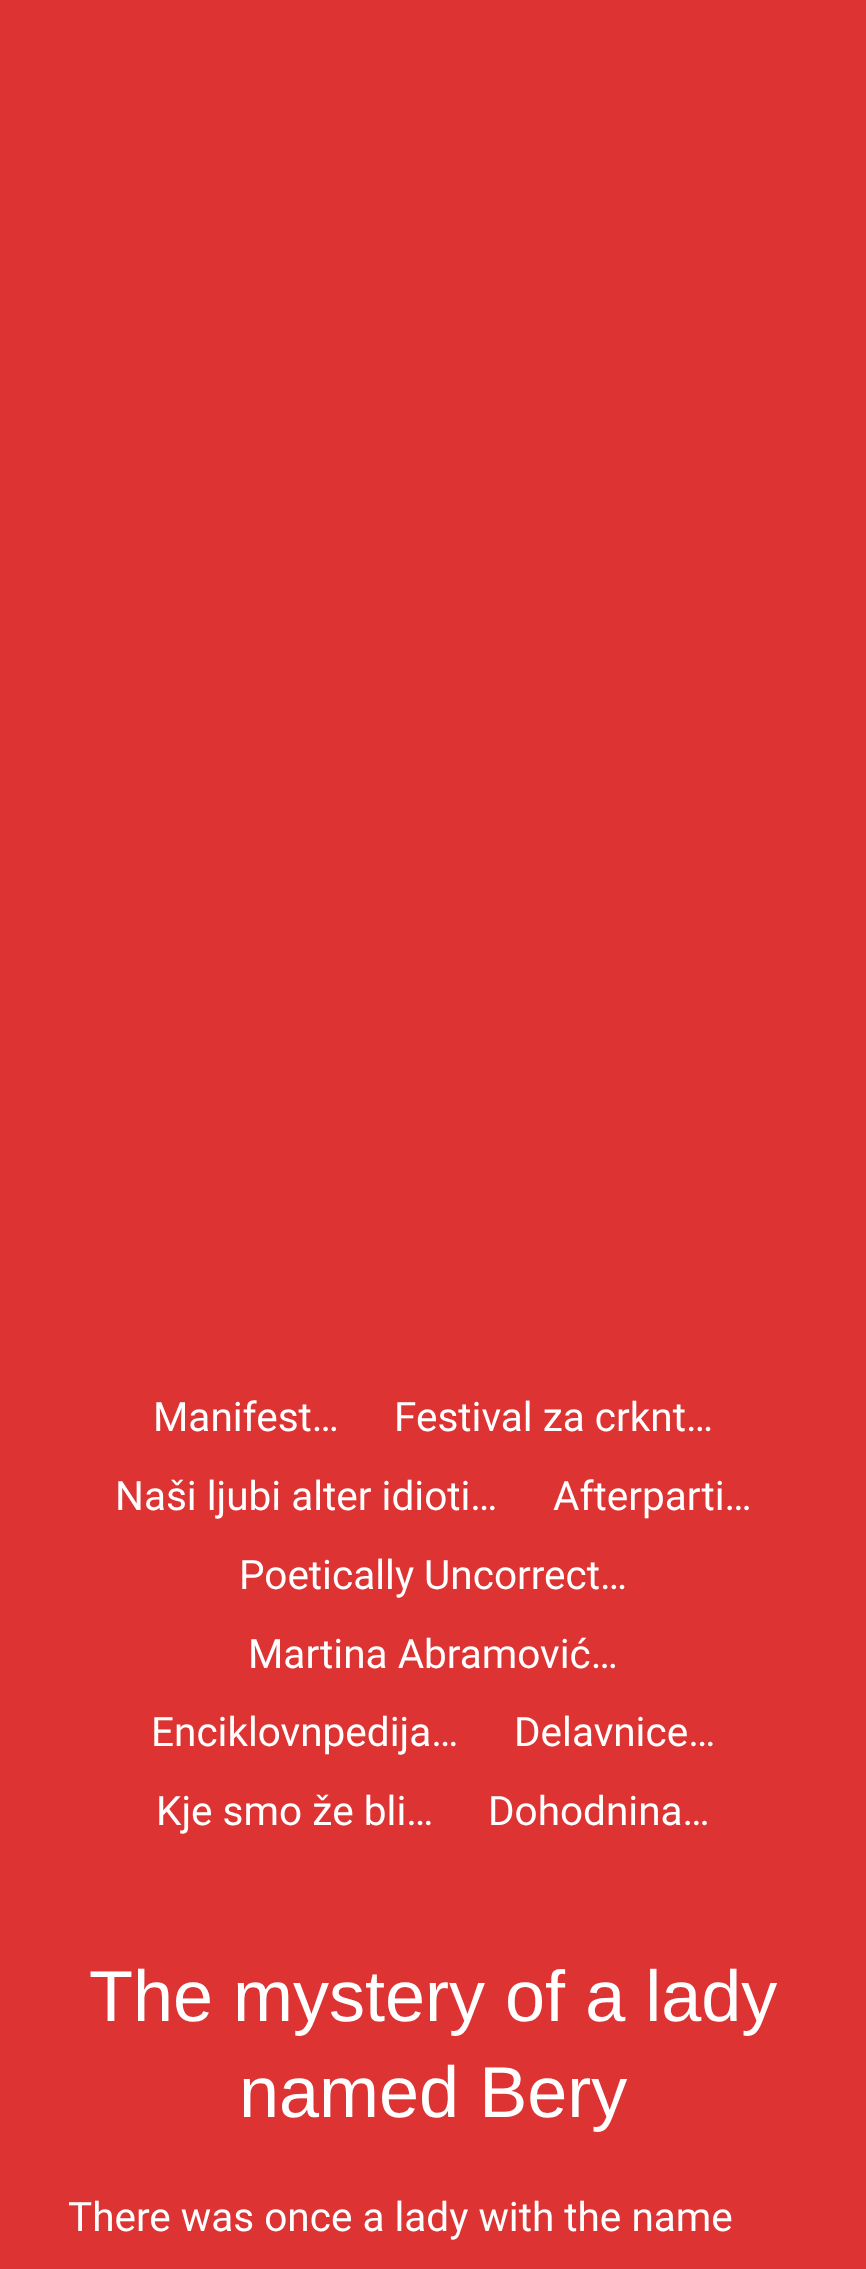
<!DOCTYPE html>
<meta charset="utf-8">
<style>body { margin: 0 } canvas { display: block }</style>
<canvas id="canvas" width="866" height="2269"></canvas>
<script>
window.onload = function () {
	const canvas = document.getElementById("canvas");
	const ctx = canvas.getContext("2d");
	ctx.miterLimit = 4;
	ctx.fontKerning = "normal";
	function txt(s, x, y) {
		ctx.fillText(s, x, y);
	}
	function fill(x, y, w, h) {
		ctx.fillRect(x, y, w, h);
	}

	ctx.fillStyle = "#DD3333";
	fill(0, 0, 866, 2269);
	ctx.font = "40.5px Roboto";
	ctx.fillStyle = "#FFFFFF";
	txt("Manifest…", 153, 1431);
	txt("Festival za crknt…", 394, 1431);
	txt("Naši ljubi alter idioti…", 115, 1510);
	txt("Afterparti…", 553, 1510);
	txt("Poetically Uncorrect…", 239, 1589);
	txt("Martina Abramović…", 248, 1668);
	txt("Enciklovnpedija…", 151, 1746);
	txt("Delavnice…", 514, 1746);
	txt("Kje smo že bli…", 156, 1825);
	txt("Dohodnina…", 488, 1825);
	ctx.font = "72px Liberation Sans";
	txt("The mystery of a lady", 89, 2021);
	txt("named Bery", 239, 2117);
	ctx.font = "40.5px Roboto";
	txt("There was once a lady with the name", 68, 2231);
};
</script>
